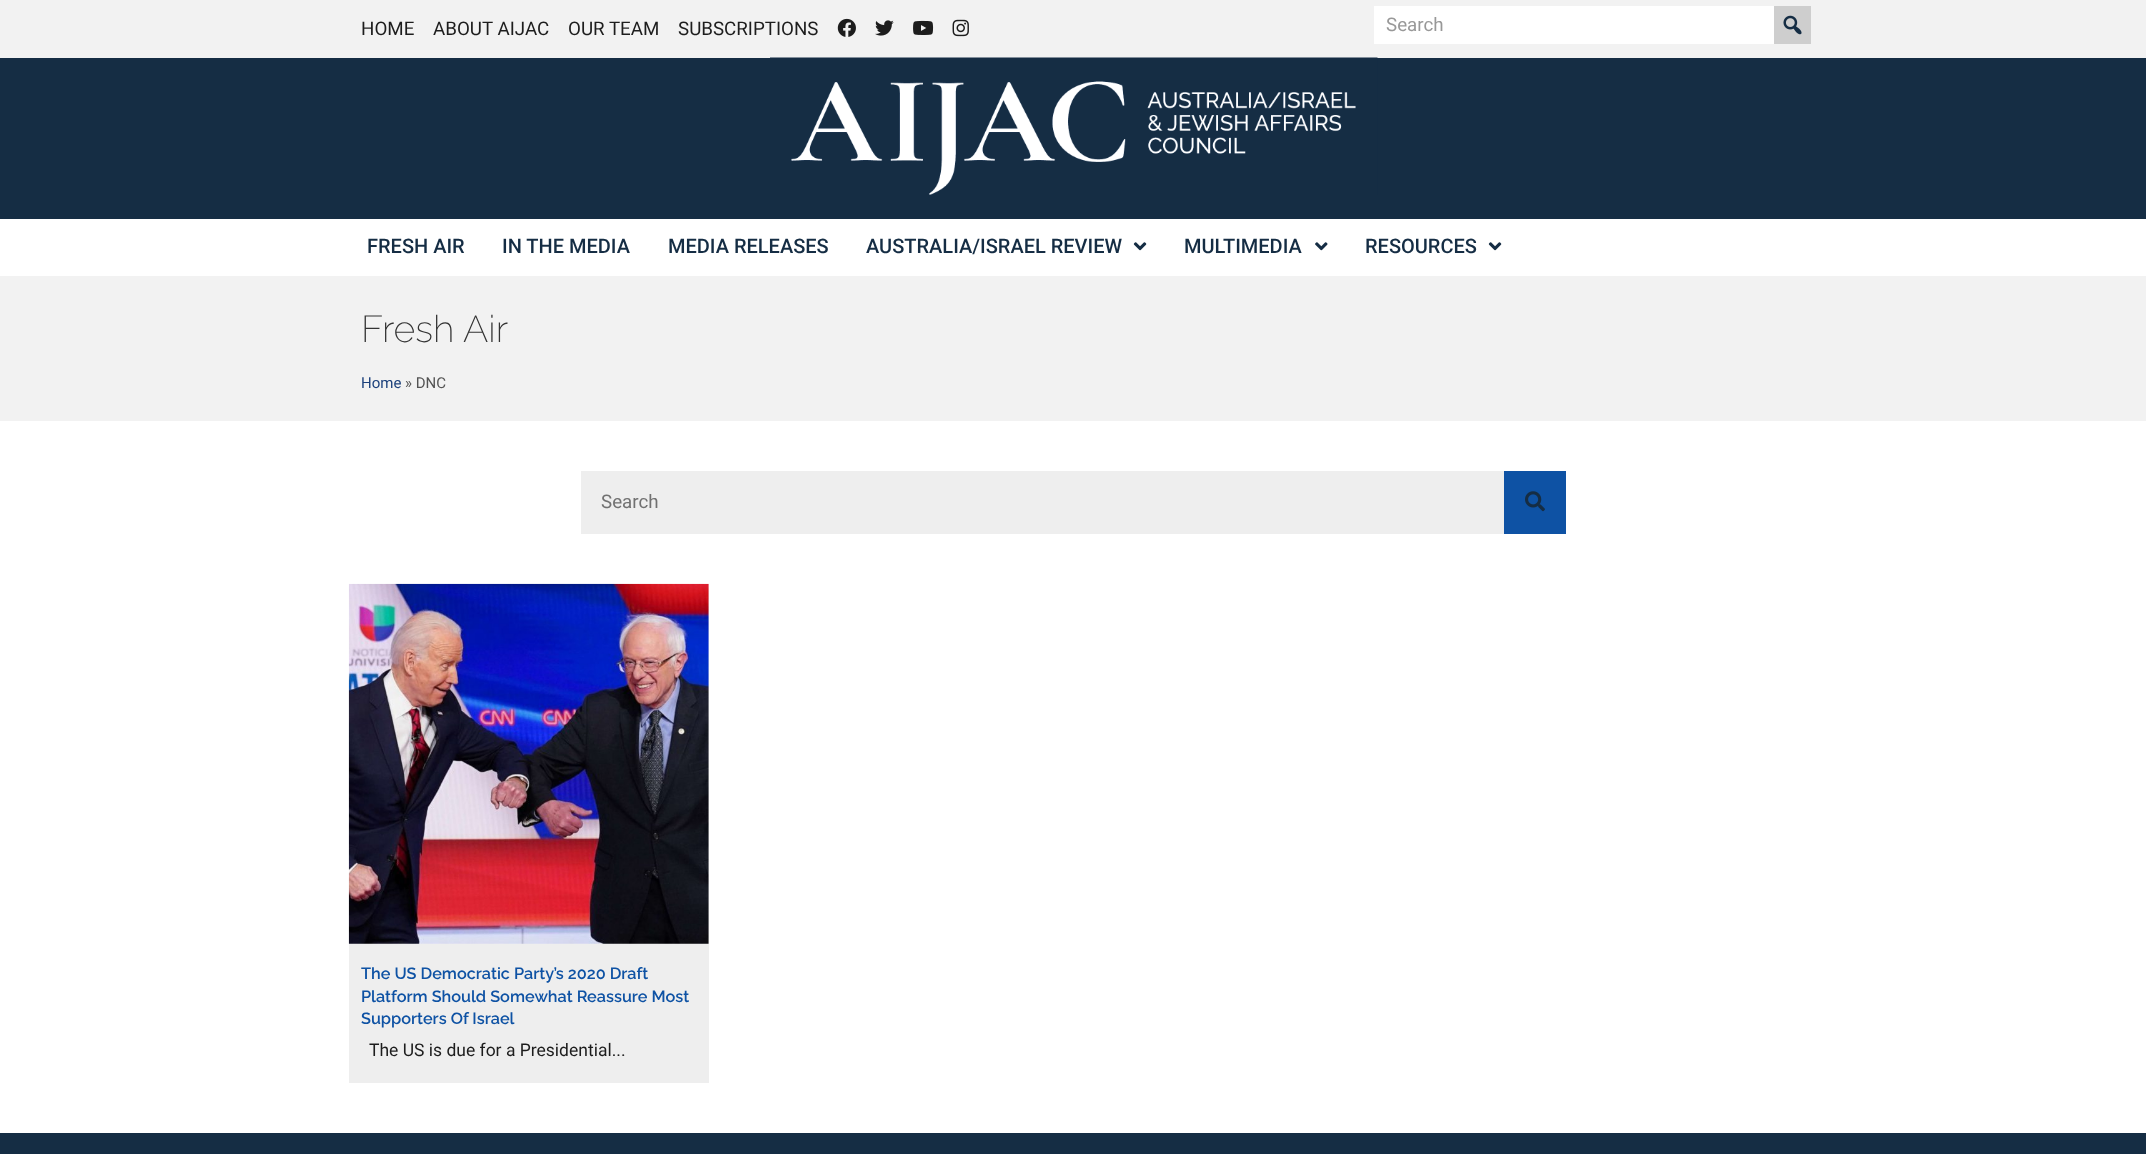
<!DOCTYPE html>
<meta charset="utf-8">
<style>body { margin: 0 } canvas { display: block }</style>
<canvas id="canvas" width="2146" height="1154"></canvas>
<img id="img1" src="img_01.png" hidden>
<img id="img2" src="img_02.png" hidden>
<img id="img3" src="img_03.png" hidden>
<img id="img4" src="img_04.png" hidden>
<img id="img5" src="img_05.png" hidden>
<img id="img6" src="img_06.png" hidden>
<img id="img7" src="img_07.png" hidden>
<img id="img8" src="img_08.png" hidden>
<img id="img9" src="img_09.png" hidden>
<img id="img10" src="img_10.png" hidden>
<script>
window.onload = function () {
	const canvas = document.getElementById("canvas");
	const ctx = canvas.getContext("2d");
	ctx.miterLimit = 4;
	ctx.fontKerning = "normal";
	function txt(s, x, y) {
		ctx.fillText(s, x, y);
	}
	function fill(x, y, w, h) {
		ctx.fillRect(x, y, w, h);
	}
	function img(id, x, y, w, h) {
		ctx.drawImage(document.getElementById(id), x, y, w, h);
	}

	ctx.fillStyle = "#F2F2F2";
	fill(0, 0, 2146, 1154);
	img("img1", 837, 18, 19, 19);
	img("img2", 875, 20, 19, 16);
	img("img3", 913, 20, 21, 15);
	img("img4", 952, 19, 17, 18);
	ctx.fillStyle = "#FFFFFF";
	fill(1374, 6, 400, 38);
	ctx.fillStyle = "#CECECE";
	fill(1774, 6, 37, 38);
	img("img5", 1783, 15, 19, 20);
	ctx.fillStyle = "#152D44";
	fill(0, 58, 2146, 161);
	img("img6", 770, 57, 608, 138);
	ctx.fillStyle = "#FFFFFF";
	fill(0, 219, 2146, 57);
	img("img7", 1133, 242, 14, 9);
	img("img8", 1315, 242, 13, 9);
	img("img7", 1488, 242, 14, 9);
	fill(0, 421, 2146, 712);
	ctx.fillStyle = "#EEEEEE";
	fill(581, 471, 923, 63);
	ctx.fillStyle = "#0E52A4";
	fill(1504, 471, 62, 63);
	img("img9", 1525, 491, 20, 21);
	ctx.fillStyle = "#EEEEEE";
	fill(349, 584, 360, 499);
	img("img10", 348, 583, 361, 361);
	ctx.fillStyle = "#152D44";
	fill(0, 1133, 2146, 21);
	ctx.font = "18.75px Roboto";
	ctx.fillStyle = "#1D1D1D";
	txt("HOME", 361, 35);
	txt("ABOUT AIJAC", 433, 35);
	txt("OUR TEAM", 568, 35);
	txt("SUBSCRIPTIONS", 678, 35);
	ctx.fillStyle = "#989898";
	txt("Search", 1386, 31);
	ctx.font = "500 20px Roboto";
	ctx.fillStyle = "#152D44";
	txt("FRESH AIR", 367, 253);
	txt("IN THE MEDIA", 502, 253);
	txt("MEDIA RELEASES", 668, 253);
	txt("AUSTRALIA/ISRAEL REVIEW", 866, 253);
	txt("MULTIMEDIA", 1184, 253);
	txt("RESOURCES", 1365, 253);
	ctx.font = "200 37.5px Raleway";
	ctx.fillStyle = "#333333";
	txt("Fresh Air", 361, 342);
	ctx.font = "15px Roboto";
	ctx.fillStyle = "#1C417C";
	txt("Home", 361, 388);
	ctx.fillStyle = "#545454";
	txt("» DNC", 405, 388);
	ctx.font = "18.75px Roboto";
	ctx.fillStyle = "#717171";
	txt("Search", 601, 508);
	ctx.font = "600 16.25px Raleway";
	ctx.fillStyle = "#0E52A4";
	txt("The US Democratic Party’s 2020 Draft", 361, 979);
	txt("Platform Should Somewhat Reassure Most", 361, 1002);
	txt("Supporters Of Israel", 361, 1024);
	ctx.font = "17.5px Roboto";
	ctx.fillStyle = "#1D1D1D";
	txt("The US is due for a Presidential...", 369, 1056);
};
</script>
